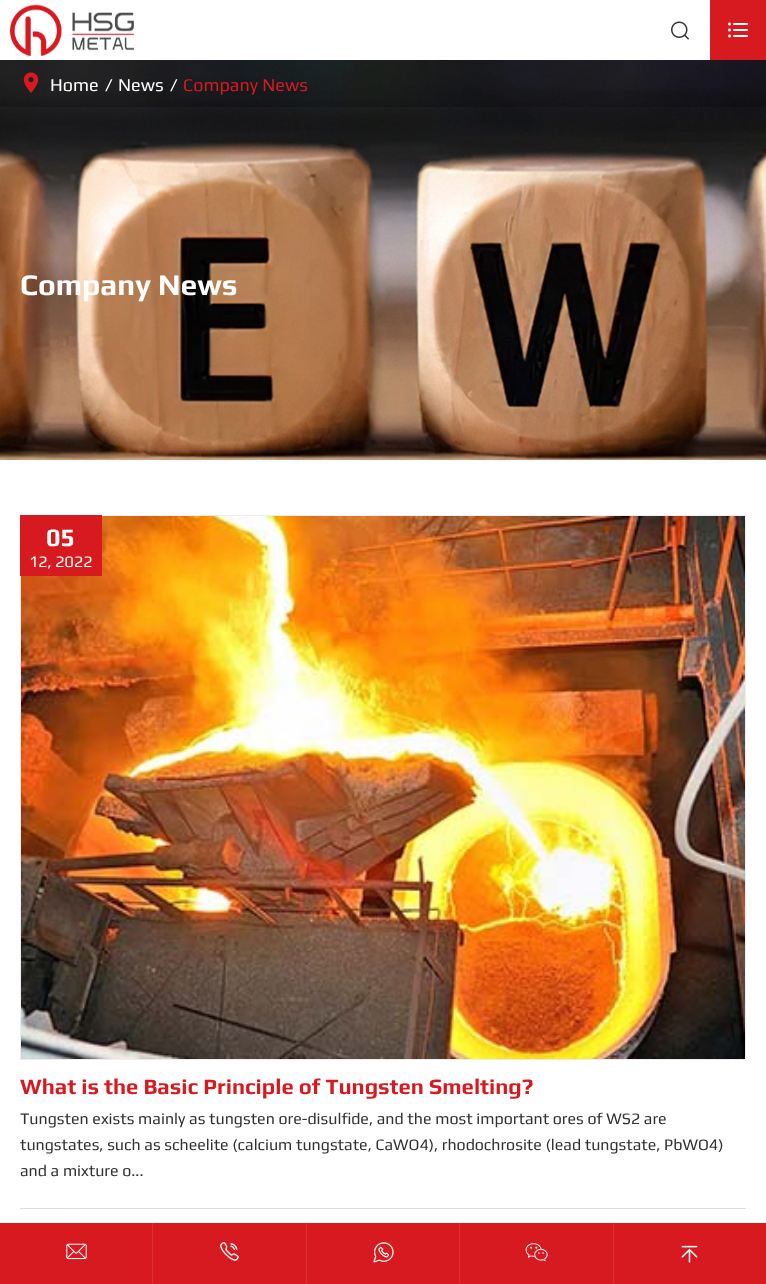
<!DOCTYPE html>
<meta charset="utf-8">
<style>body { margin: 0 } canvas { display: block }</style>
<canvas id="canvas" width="766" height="1284"></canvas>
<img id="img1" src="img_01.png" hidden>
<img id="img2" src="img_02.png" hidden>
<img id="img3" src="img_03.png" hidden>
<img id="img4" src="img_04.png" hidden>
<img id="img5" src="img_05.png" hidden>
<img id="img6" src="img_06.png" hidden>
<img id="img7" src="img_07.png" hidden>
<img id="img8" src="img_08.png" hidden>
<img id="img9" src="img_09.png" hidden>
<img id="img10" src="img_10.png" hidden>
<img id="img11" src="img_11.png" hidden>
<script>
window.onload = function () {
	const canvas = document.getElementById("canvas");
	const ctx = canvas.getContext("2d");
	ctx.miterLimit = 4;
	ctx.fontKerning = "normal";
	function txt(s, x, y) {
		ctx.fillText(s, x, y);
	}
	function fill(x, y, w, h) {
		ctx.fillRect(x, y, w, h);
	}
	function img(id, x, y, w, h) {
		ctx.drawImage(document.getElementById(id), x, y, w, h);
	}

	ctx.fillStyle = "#FFFFFF";
	fill(0, 0, 766, 1284);
	img("img1", 10, 4, 124, 52);
	img("img2", 671, 21, 18, 19);
	ctx.fillStyle = "#D71A20";
	fill(710, 0, 56, 60);
	img("img3", 728, 22, 20, 16);
	img("img4", 0, 60, 766, 400);
	ctx.fillStyle = "rgba(0, 0, 0, 0.2)";
	fill(0, 60, 766, 47);
	img("img5", 23, 72, 16, 21);
	ctx.fillStyle = "#DDDDDD";
	fill(20, 1208, 726, 1);
	ctx.strokeStyle = "#EDEDED";
	ctx.strokeRect(20.5, 515.5, 725, 544);
	img("img6", 21, 516, 724, 543);
	ctx.fillStyle = "#D71A20";
	fill(20, 515, 82, 61);
	fill(0, 1223, 766, 61);
	ctx.fillStyle = "#DB3136";
	fill(152, 1223, 1, 61);
	img("img7", 66, 1243, 21, 17);
	fill(306, 1223, 1, 61);
	img("img8", 220, 1242, 19, 19);
	fill(459, 1223, 1, 61);
	img("img9", 373, 1242, 21, 21);
	fill(613, 1223, 1, 61);
	img("img10", 525, 1243, 23, 19);
	img("img11", 681, 1245, 17, 18);
	ctx.font = "18px Play";
	ctx.fillStyle = "#FFFFFF";
	txt("Home", 50, 91);
	txt("/", 105, 91);
	txt("News", 118, 91);
	txt("/", 170, 91);
	ctx.fillStyle = "#D71A20";
	txt("Company News", 183, 91);
	ctx.font = "bold 30px Play";
	ctx.fillStyle = "#FFFFFF";
	txt("Company News", 20, 295);
	ctx.font = "bold 25px Play";
	txt("05", 46, 546);
	ctx.font = "16px Play";
	txt("12, 2022", 29, 567);
	ctx.font = "bold 22px Play";
	ctx.fillStyle = "#D71A20";
	txt("What is the Basic Principle of Tungsten Smelting?", 20, 1094);
	ctx.font = "16px Play";
	ctx.fillStyle = "#323131";
	txt("Tungsten exists mainly as tungsten ore-disulfide, and the most important ores of WS2 are", 20, 1124);
	txt("tungstates, such as scheelite (calcium tungstate, CaWO4), rhodochrosite (lead tungstate, PbWO4)", 20, 1150);
	txt("and a mixture o...", 20, 1176);
};
</script>
